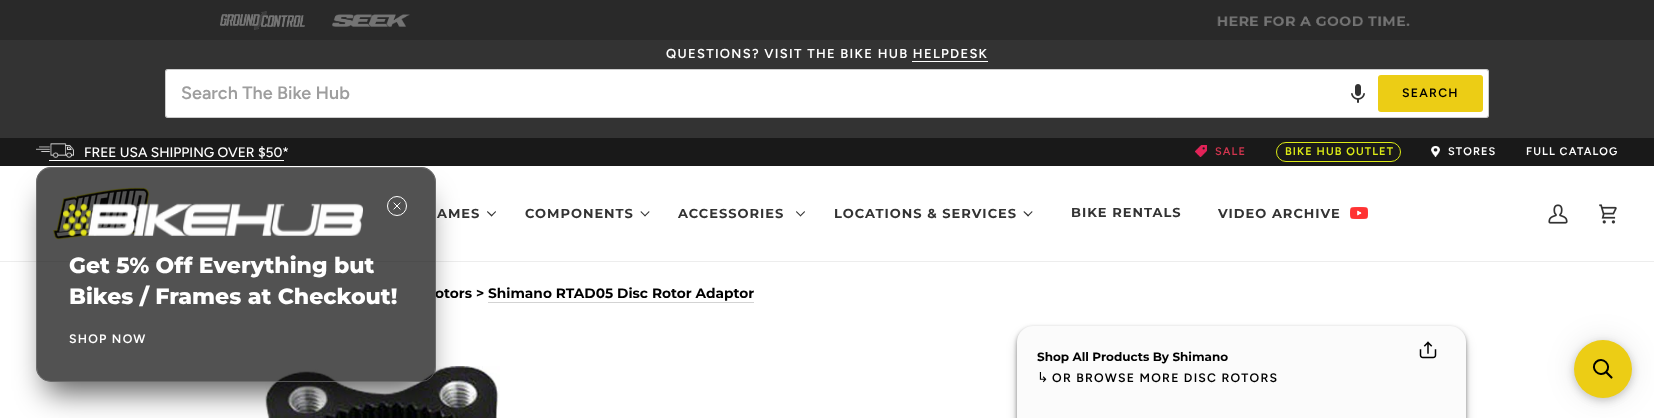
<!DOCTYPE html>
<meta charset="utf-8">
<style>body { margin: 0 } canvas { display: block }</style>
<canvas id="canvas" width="1654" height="418"></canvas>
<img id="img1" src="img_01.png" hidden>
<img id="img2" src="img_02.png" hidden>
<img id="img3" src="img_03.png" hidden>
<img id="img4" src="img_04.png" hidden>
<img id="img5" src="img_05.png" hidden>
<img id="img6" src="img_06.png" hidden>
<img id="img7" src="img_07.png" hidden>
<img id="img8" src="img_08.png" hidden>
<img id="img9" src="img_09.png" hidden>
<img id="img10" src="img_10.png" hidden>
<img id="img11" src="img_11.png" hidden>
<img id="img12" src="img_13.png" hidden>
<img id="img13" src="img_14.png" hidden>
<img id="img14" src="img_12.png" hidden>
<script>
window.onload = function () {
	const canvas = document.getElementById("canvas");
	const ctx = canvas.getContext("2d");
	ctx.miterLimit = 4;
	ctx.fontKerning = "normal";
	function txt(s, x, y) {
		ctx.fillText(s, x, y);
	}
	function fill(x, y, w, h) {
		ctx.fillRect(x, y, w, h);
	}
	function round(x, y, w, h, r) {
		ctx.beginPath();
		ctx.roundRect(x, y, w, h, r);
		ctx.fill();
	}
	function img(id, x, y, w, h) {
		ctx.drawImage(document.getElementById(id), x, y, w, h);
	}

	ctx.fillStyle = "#FFFFFF";
	fill(0, 0, 1654, 418);
	ctx.fillStyle = "#333333";
	fill(0, 40, 1654, 98);
	ctx.fillStyle = "#292929";
	fill(0, 0, 1654, 40);
	img("img1", 220, 11, 85, 19);
	img("img2", 332, 14, 78, 13);
	img("img3", 1217, 16, 193, 10);
	ctx.fillStyle = "#FFFFFF";
	fill(912, 61, 76, 1);
	round(165, 69, 1324, 49, 3);
	ctx.beginPath();
	ctx.roundRect(165.5, 69.5, 1323, 48, 2.5);
	ctx.strokeStyle = "rgba(0, 0, 0, 0.2)";
	ctx.stroke();
	img("img4", 1351, 84, 14, 19);
	ctx.fillStyle = "#ECCD15";
	round(1378, 75, 105, 37, 3);
	ctx.fillStyle = "#EDEDED";
	fill(0, 261, 1654, 1);
	ctx.fillStyle = "#191919";
	fill(0, 138, 1654, 28);
	img("img5", 36, 143, 38, 15);
	ctx.fillStyle = "#FFFFFF";
	fill(49, 160, 235, 1);
	img("img6", 1195, 145, 12, 12);
	ctx.beginPath();
	ctx.roundRect(1276.5, 142.5, 124, 19, 9.5);
	ctx.strokeStyle = "#DDEB16";
	ctx.stroke();
	img("img7", 1431, 146, 9, 11);
	img("img8", 53, 187, 97, 53);
	ctx.fillStyle = "#333333";
	ctx.beginPath();
	ctx.moveTo(491, 215.5);
	ctx.lineTo(495.5, 211);
	ctx.lineTo(496, 212);
	ctx.lineTo(491.5, 216.5);
	ctx.closePath();
	ctx.fill();
	ctx.beginPath();
	ctx.moveTo(487, 212);
	ctx.lineTo(487.5, 211);
	ctx.lineTo(492.5, 215.5);
	ctx.lineTo(491.5, 216.5);
	ctx.closePath();
	ctx.fill();
	ctx.beginPath();
	ctx.moveTo(644.5, 215.5);
	ctx.lineTo(649, 211);
	ctx.lineTo(649.5, 212);
	ctx.lineTo(645, 216.5);
	ctx.closePath();
	ctx.fill();
	ctx.beginPath();
	ctx.moveTo(640.5, 212);
	ctx.lineTo(641, 211);
	ctx.lineTo(645.5, 215.5);
	ctx.lineTo(645, 216.5);
	ctx.closePath();
	ctx.fill();
	ctx.beginPath();
	ctx.moveTo(800, 215.5);
	ctx.lineTo(804.5, 211);
	ctx.lineTo(805, 212);
	ctx.lineTo(800.5, 216.5);
	ctx.closePath();
	ctx.fill();
	ctx.beginPath();
	ctx.moveTo(796, 212);
	ctx.lineTo(796.5, 211);
	ctx.lineTo(801, 215.5);
	ctx.lineTo(800.5, 216.5);
	ctx.closePath();
	ctx.fill();
	ctx.beginPath();
	ctx.moveTo(1027.5, 215.5);
	ctx.lineTo(1032, 211);
	ctx.lineTo(1032.5, 212);
	ctx.lineTo(1028, 216.5);
	ctx.closePath();
	ctx.fill();
	ctx.beginPath();
	ctx.moveTo(1023.5, 212);
	ctx.lineTo(1024, 211);
	ctx.lineTo(1029, 215.5);
	ctx.lineTo(1028, 216.5);
	ctx.closePath();
	ctx.fill();
	img("img9", 1350, 207, 18, 12);
	img("img10", 1548, 204, 20, 20);
	img("img11", 1599, 204, 18, 20);
	img("img12", 265, 366, 235, 52);
	ctx.save();
	ctx.beginPath();
	ctx.moveTo(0, 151);
	ctx.lineTo(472, 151);
	ctx.lineTo(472, 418);
	ctx.lineTo(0, 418);
	ctx.closePath();
	ctx.moveTo(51, 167);
	ctx.lineTo(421, 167);
	ctx.bezierCurveTo(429.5, 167, 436, 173.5, 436, 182);
	ctx.lineTo(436, 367);
	ctx.bezierCurveTo(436, 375.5, 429.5, 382, 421, 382);
	ctx.lineTo(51, 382);
	ctx.bezierCurveTo(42.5, 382, 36, 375.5, 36, 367);
	ctx.lineTo(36, 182);
	ctx.bezierCurveTo(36, 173.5, 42.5, 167, 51, 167);
	ctx.closePath();
	ctx.clip("evenodd");
	ctx.fillStyle = "rgba(0, 0, 0, 0.64)";
	ctx.filter = "blur(15px)";
	ctx.beginPath();
	ctx.roundRect(46, 197, 380, 195, 5);
	ctx.fill();
	ctx.filter = "none";
	ctx.restore();
	ctx.fillStyle = "#D3D3D3";
	fill(488, 302, 266, 1);
	ctx.fillStyle = "rgba(0, 0, 0, 0.3)";
	ctx.filter = "blur(6.5px)";
	ctx.beginPath();
	ctx.roundRect(1020, 336, 443, 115, 13);
	ctx.fill();
	ctx.filter = "none";
	ctx.fillStyle = "rgba(0, 0, 0, 0.4)";
	ctx.filter = "blur(2px)";
	ctx.beginPath();
	ctx.roundRect(1017, 328, 449, 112, 16);
	ctx.fill();
	ctx.filter = "none";
	ctx.fillStyle = "#FBFBFB";
	round(1017, 326, 449, 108, 16);
	img("img13", 1419, 341, 18, 18);
	ctx.fillStyle = "rgba(0, 0, 0, 0.05)";
	ctx.filter = "blur(4px)";
	ctx.beginPath();
	ctx.roundRect(1574, 344, 58, 58, 29);
	ctx.fill();
	ctx.filter = "none";
	ctx.fillStyle = "rgba(0, 0, 0, 0.15)";
	ctx.filter = "blur(4px)";
	ctx.beginPath();
	ctx.roundRect(1574, 342, 58, 58, 29);
	ctx.fill();
	ctx.filter = "none";
	ctx.fillStyle = "rgba(0, 0, 0, 0.1)";
	ctx.filter = "blur(15px)";
	ctx.beginPath();
	ctx.roundRect(1574, 340, 58, 58, 29);
	ctx.fill();
	ctx.filter = "none";
	ctx.fillStyle = "#ECCD15";
	ctx.beginPath();
	ctx.arc(1603, 369, 29, 0, Math.PI * 2);
	ctx.fill();
	ctx.beginPath();
	ctx.moveTo(1596, 362);
	ctx.bezierCurveTo(1602.5, 355.5, 1612.5, 365.5, 1606, 372);
	ctx.bezierCurveTo(1599.5, 378.5, 1589.5, 368.5, 1596, 362);
	ctx.closePath();
	ctx.strokeStyle = "#000000";
	ctx.lineWidth = 2;
	ctx.stroke();
	ctx.fillStyle = "#000000";
	ctx.beginPath();
	ctx.moveTo(1605, 372.5);
	ctx.lineTo(1606.5, 371);
	ctx.lineTo(1612.5, 377);
	ctx.bezierCurveTo(1613, 378, 1611.5, 379, 1611, 378.5);
	ctx.closePath();
	ctx.fill();
	ctx.letterSpacing = "1.3px";
	ctx.font = "600 13px Figtree";
	ctx.fillStyle = "#FFFFFF";
	txt("QUESTIONS? VISIT THE BIKE HUB HELPDESK", 666, 58);
	ctx.letterSpacing = "0px";
	ctx.font = "600 18px Figtree";
	ctx.fillStyle = "#9E9E9E";
	txt("Search The Bike Hub", 181, 99);
	ctx.letterSpacing = "1.25px";
	ctx.font = "600 12.3px Figtree";
	ctx.fillStyle = "#000000";
	txt("SEARCH", 1402, 97);
	ctx.letterSpacing = "0px";
	ctx.font = "500 13.75px Figtree";
	ctx.fillStyle = "#FFFFFF";
	txt("FREE USA SHIPPING OVER $50*", 84, 157);
	ctx.letterSpacing = "1.1px";
	ctx.font = "600 11px Figtree";
	ctx.fillStyle = "#D2354F";
	txt("SALE", 1215, 155);
	ctx.fillStyle = "#DDEB16";
	txt("BIKE HUB OUTLET", 1285, 155);
	ctx.fillStyle = "#FFFFFF";
	txt("STORES", 1448, 155);
	txt("FULL CATALOG", 1526, 155);
	ctx.letterSpacing = "1px";
	ctx.font = "bold 13px Montserrat";
	ctx.fillStyle = "#333333";
	txt("AMES", 437, 218);
	txt("COMPONENTS", 525, 218);
	txt("ACCESSORIES", 678, 218);
	txt("LOCATIONS & SERVICES", 834, 218);
	txt("BIKE RENTALS", 1071, 217);
	txt("VIDEO ARCHIVE", 1218, 218);
	ctx.letterSpacing = "0px";
	ctx.font = "bold 13.75px Montserrat";
	ctx.fillStyle = "#000000";
	txt("otors > Shimano RTAD05 Disc Rotor Adaptor", 435, 298);
	ctx.fillStyle = "rgba(8, 8, 8, 0.7)";
	round(36, 167, 400, 215, 15);
	ctx.beginPath();
	ctx.roundRect(36.5, 167.5, 399, 214, 14.5);
	ctx.strokeStyle = "rgba(123, 123, 123, 0.63)";
	ctx.lineWidth = 1;
	ctx.stroke();
	ctx.beginPath();
	ctx.arc(397, 206, 9.5, 0, Math.PI * 2);
	ctx.strokeStyle = "#FFFFFF";
	ctx.stroke();
	ctx.beginPath();
	ctx.moveTo(400, 203);
	ctx.lineTo(394, 209);
	ctx.moveTo(394, 203);
	ctx.lineTo(400, 209);
	ctx.lineCap = "square";
	ctx.stroke();
	ctx.letterSpacing = "1.25px";
	ctx.font = "600 12.3px Figtree";
	ctx.fillStyle = "#FFFFFF";
	txt("SHOP NOW", 69, 343);
	ctx.letterSpacing = "0px";
	ctx.font = "800 22px Montserrat";
	txt("Bikes / Frames at Checkout!", 69, 304);
	txt("Get 5% Off Everything but", 69, 273);
	img("img14", 63, 203, 300, 33);
	ctx.font = "bold 12px Montserrat";
	ctx.fillStyle = "#000000";
	txt("Shop All Products By Shimano", 1037, 361);
	ctx.font = "13.75px DejaVu Sans";
	txt("↳", 1037, 382);
	ctx.letterSpacing = "1.25px";
	ctx.font = "600 12.3px Figtree";
	txt("OR BROWSE MORE DISC ROTORS", 1052, 382);
};
</script>
